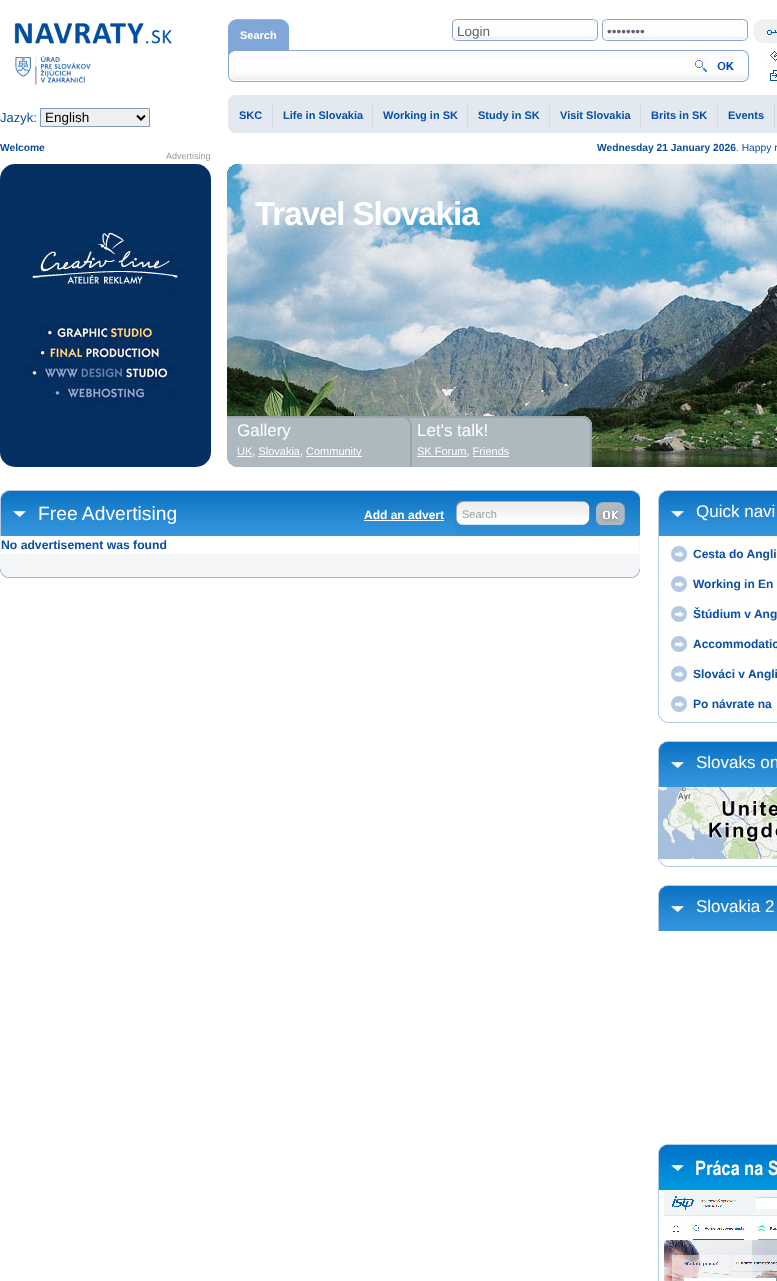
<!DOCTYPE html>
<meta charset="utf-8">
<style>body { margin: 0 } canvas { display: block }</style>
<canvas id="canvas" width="777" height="1281"></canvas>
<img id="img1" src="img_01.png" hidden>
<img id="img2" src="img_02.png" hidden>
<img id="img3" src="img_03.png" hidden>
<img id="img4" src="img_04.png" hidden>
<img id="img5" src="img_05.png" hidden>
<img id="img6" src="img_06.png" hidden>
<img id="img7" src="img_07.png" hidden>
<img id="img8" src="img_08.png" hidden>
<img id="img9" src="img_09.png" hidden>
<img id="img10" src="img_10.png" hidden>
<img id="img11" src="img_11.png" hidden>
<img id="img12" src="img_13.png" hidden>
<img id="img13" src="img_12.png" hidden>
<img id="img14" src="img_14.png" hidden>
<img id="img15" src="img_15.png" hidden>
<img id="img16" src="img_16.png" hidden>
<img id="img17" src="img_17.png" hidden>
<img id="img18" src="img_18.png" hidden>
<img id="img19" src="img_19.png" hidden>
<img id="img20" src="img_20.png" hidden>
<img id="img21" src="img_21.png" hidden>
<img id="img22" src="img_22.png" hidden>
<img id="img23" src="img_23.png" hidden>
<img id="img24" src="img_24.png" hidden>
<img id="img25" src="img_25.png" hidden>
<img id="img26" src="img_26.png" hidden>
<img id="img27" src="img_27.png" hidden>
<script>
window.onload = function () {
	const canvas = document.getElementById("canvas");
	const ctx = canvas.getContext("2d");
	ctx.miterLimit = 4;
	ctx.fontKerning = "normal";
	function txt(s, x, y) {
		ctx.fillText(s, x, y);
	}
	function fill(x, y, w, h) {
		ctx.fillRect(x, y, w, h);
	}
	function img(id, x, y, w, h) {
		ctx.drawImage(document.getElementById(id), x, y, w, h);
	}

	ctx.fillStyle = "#FFFFFF";
	fill(0, 0, 777, 1281);
	img("img1", 0, 23, 172, 62);
	img("img2", 228, 50, 521, 32);
	img("img3", 228, 19, 9, 31);
	img("img4", 237, 19, 52, 31);
	img("img5", 452, 19, 146, 22);
	img("img5", 602, 19, 146, 22);
	img("img6", 753, 19, 24, 24);
	img("img7", 756, 43, 21, 38);
	ctx.fillStyle = "#EFEFEF";
	ctx.beginPath();
	ctx.rect(40.5, 108.5, 109, 18);
	ctx.fill();
	ctx.strokeStyle = "#7F9DB9";
	ctx.stroke();
	ctx.beginPath();
	ctx.moveTo(137, 115.5);
	ctx.lineTo(141, 119.5);
	ctx.lineTo(145, 115.5);
	ctx.strokeStyle = "#000000";
	ctx.lineWidth = 2;
	ctx.stroke();
	img("img8", 228, 95, 549, 38);
	img("img9", 272, 103, 2, 24);
	img("img9", 372, 103, 2, 24);
	img("img9", 467, 103, 2, 24);
	img("img9", 549, 103, 2, 24);
	img("img9", 640, 103, 2, 24);
	img("img9", 717, 103, 2, 24);
	img("img9", 774, 103, 2, 24);
	img("img10", 0, 164, 211, 303);
	img("img11", 406, 416, 371, 51);
	img("img12", 407, 416, 185, 51);
	img("img13", 227, 416, 185, 51);
	ctx.fillStyle = "#FFFFFF";
	fill(237, 456, 15, 1);
	fill(306, 456, 56, 1);
	fill(258, 456, 42, 1);
	fill(417, 456, 50, 1);
	fill(473, 456, 36, 1);
	img("img14", 227, 460, 7, 7);
	img("img15", 227, 164, 550, 252);
	img("img16", 227, 164, 7, 7);
	img("img17", 0, 490, 640, 46);
	fill(364, 520, 80, 1);
	img("img18", 455, 490, 185, 45);
	ctx.fillStyle = "#F4F5F7";
	fill(0, 536, 640, 33);
	img("img19", 0, 569, 640, 9);
	ctx.fillStyle = "#FFFFFF";
	fill(1, 536, 638, 18);
	img("img20", 684, 490, 93, 46);
	img("img21", 658, 490, 26, 46);
	img("img22", 658, 716, 119, 7);
	img("img23", 658, 536, 119, 180);
	img("img24", 671, 546, 16, 16);
	img("img24", 671, 576, 16, 16);
	img("img24", 671, 606, 16, 16);
	img("img24", 671, 636, 16, 16);
	img("img24", 671, 666, 16, 16);
	img("img24", 671, 696, 16, 16);
	img("img20", 684, 741, 93, 46);
	img("img21", 658, 741, 26, 46);
	img("img22", 658, 860, 119, 7);
	img("img25", 658, 859, 119, 1);
	img("img26", 658, 787, 119, 72);
	img("img20", 684, 885, 93, 46);
	img("img21", 658, 885, 26, 46);
	img("img27", 658, 1143, 119, 138);
	ctx.font = "bold 11px Liberation Sans";
	txt("Search", 240, 39);
	ctx.font = "13.5px Liberation Sans";
	ctx.fillStyle = "#586873";
	txt("Login", 457, 36);
	txt("••••••••", 607, 36);
	ctx.font = "13px Liberation Sans";
	ctx.fillStyle = "#0C4DA1";
	txt("Jazyk:", 0, 122);
	ctx.font = "13.5px Liberation Sans";
	ctx.fillStyle = "#000000";
	txt("English", 45, 122);
	ctx.font = "bold 11px Liberation Sans";
	ctx.fillStyle = "#0B4EA7";
	txt("SKC", 239, 119);
	txt("Life in Slovakia", 283, 119);
	txt("Working in SK", 383, 119);
	txt("Study in SK", 478, 119);
	txt("Visit Slovakia", 560, 119);
	txt("Brits in SK", 651, 119);
	txt("Events", 728, 119);
	ctx.font = "bold 10.25px Liberation Sans";
	ctx.fillStyle = "#0C4DA1";
	txt("Welcome", 0, 151);
	txt("Wednesday 21 January 2026", 597, 151);
	ctx.font = "10.25px Liberation Sans";
	txt(". Happy n", 736, 151);
	ctx.font = "9px Liberation Sans";
	ctx.fillStyle = "#999999";
	txt("Advertising", 166, 159);
	ctx.font = "17px Liberation Sans";
	ctx.fillStyle = "#FFFFFF";
	txt("Gallery", 237, 436);
	ctx.font = "11px Liberation Sans";
	txt("UK, Slovakia,", 237, 455);
	txt("Community", 306, 455);
	ctx.font = "17px Liberation Sans";
	txt("Let's talk!", 417, 436);
	ctx.font = "11px Liberation Sans";
	txt("SK Forum, Friends", 417, 455);
	ctx.letterSpacing = "-1px";
	ctx.font = "bold 33px Liberation Sans";
	txt("Travel Slovakia", 255, 225);
	ctx.letterSpacing = "0px";
	ctx.font = "19.25px Liberation Sans";
	txt("Free Advertising", 38, 520);
	ctx.font = "bold 12px Liberation Sans";
	txt("Add an advert", 364, 519);
	ctx.font = "11px Liberation Sans";
	ctx.fillStyle = "#96A3AB";
	txt("Search", 462, 518);
	ctx.font = "bold 12.2px Liberation Sans";
	ctx.fillStyle = "#0C4DA1";
	txt("No advertisement was found", 1, 549);
	ctx.font = "17px Liberation Sans";
	ctx.fillStyle = "#FFFFFF";
	txt("Quick navi", 696, 517);
	ctx.font = "bold 12px Liberation Sans";
	ctx.fillStyle = "#0B4EA7";
	txt("Cesta do Angli", 693, 558);
	txt("Working in En", 693, 588);
	txt("Štúdium v Ang", 693, 618);
	txt("Accommodatio", 693, 648);
	txt("Slováci v Angli", 693, 678);
	txt("Po návrate na", 693, 708);
	ctx.font = "17px Liberation Sans";
	ctx.fillStyle = "#FFFFFF";
	txt("Slovaks on", 696, 768);
	txt("Slovakia 2", 696, 912);
};
</script>
